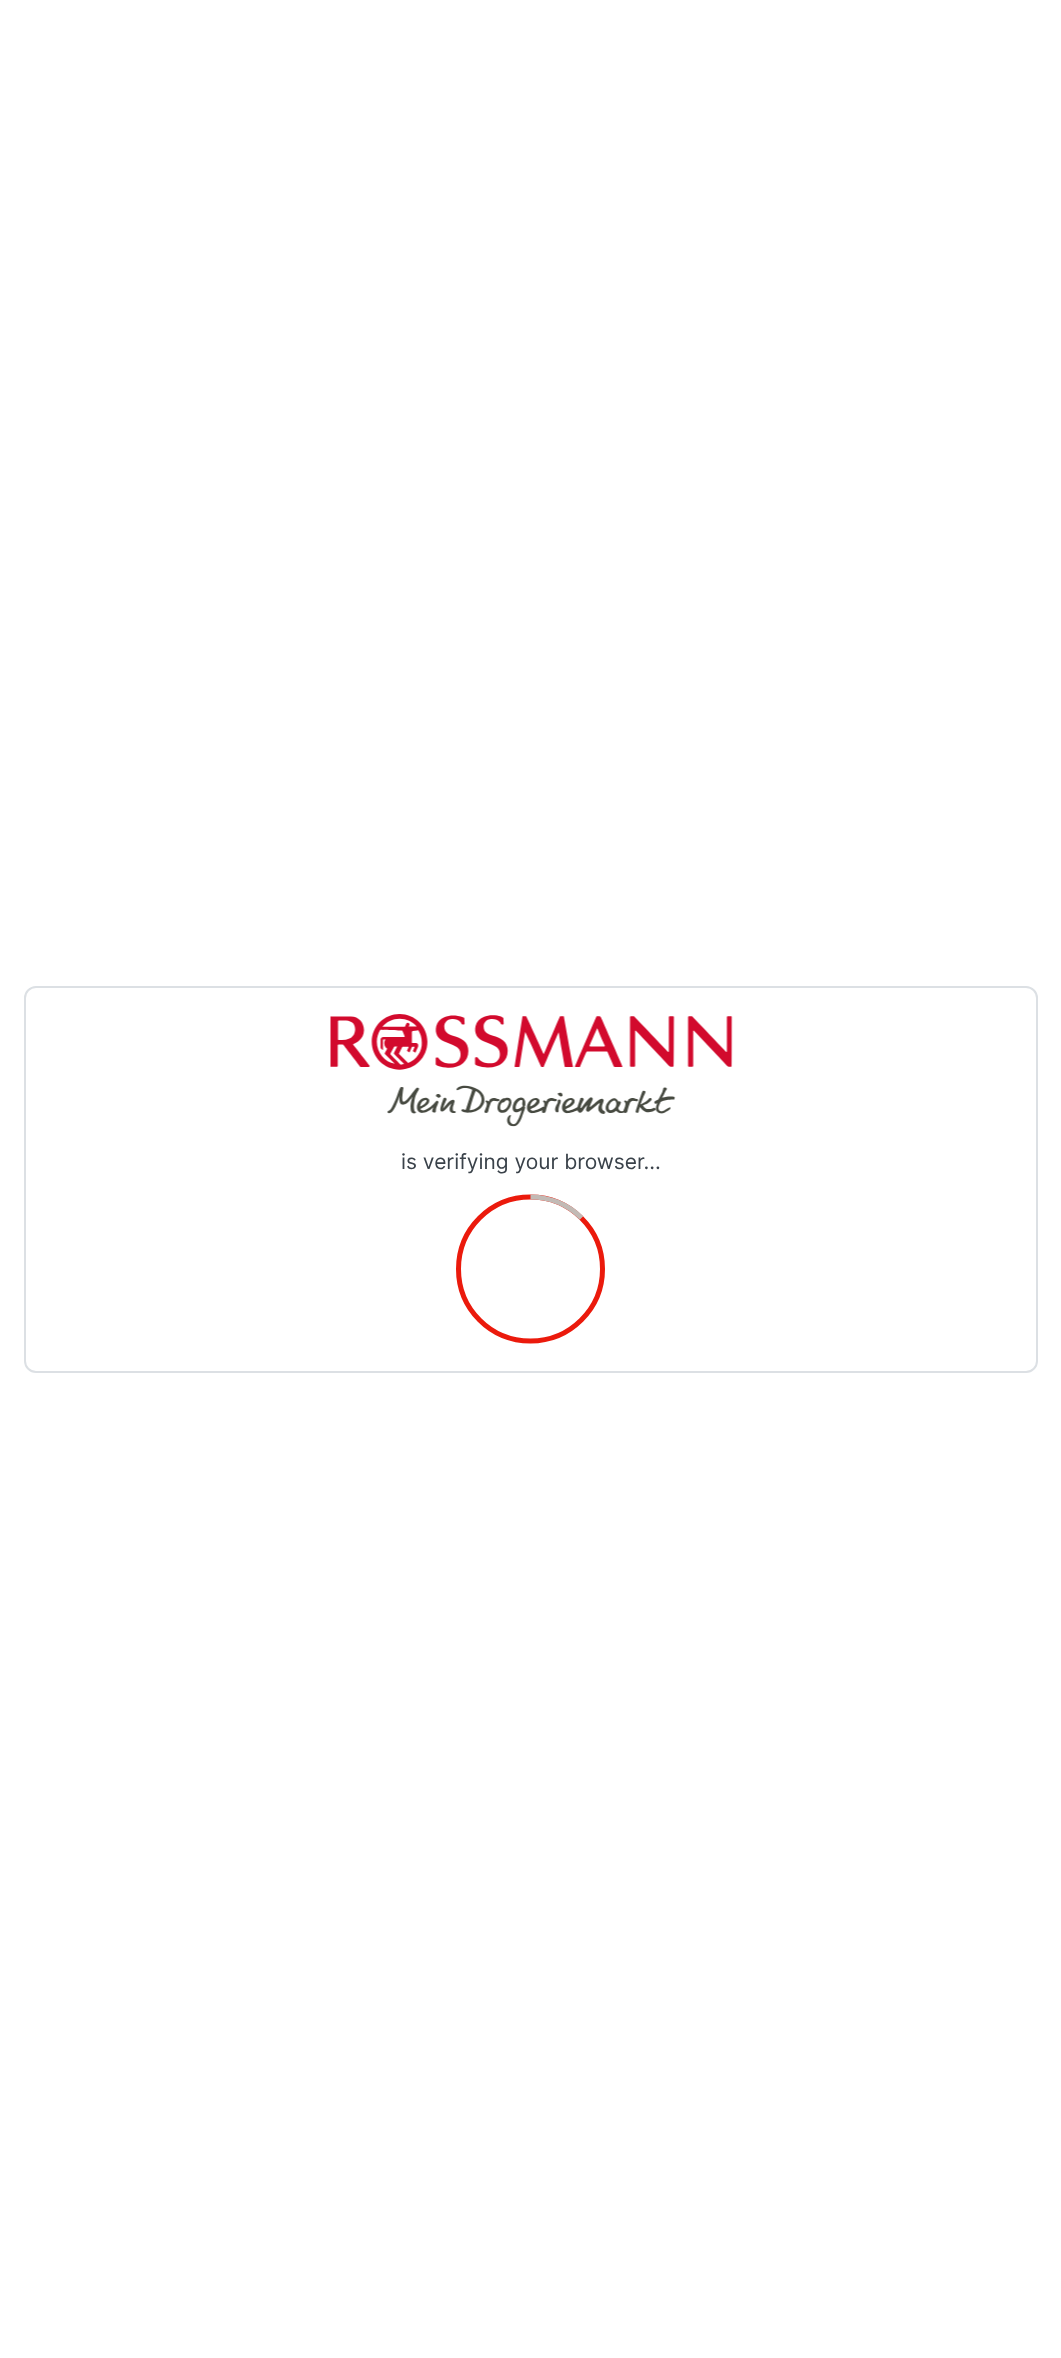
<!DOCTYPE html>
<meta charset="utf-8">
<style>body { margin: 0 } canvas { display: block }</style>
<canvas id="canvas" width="1061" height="2358"></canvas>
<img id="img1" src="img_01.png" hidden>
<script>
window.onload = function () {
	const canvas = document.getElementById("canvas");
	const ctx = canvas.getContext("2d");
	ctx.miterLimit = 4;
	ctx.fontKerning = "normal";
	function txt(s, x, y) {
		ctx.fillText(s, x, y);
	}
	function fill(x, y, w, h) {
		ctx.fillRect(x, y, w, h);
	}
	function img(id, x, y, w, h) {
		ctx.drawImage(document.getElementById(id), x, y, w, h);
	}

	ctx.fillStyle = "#FFFFFF";
	fill(0, 0, 1061, 2358);
	ctx.beginPath();
	ctx.roundRect(25, 987, 1012, 385, 11);
	ctx.strokeStyle = "#DCE0E4";
	ctx.lineWidth = 2;
	ctx.stroke();
	img("img1", 330, 1014, 403, 113);
	ctx.beginPath();
	ctx.moveTo(458.5, 1269);
	ctx.bezierCurveTo(458.5, 1229, 490.5, 1197, 530.5, 1197);
	ctx.bezierCurveTo(570, 1197, 602.5, 1229, 602.5, 1269);
	ctx.bezierCurveTo(602.5, 1309, 570, 1341, 530.5, 1341);
	ctx.bezierCurveTo(490.5, 1341, 458.5, 1309, 458.5, 1269);
	ctx.closePath();
	ctx.strokeStyle = "#EB1A0C";
	ctx.lineWidth = 5;
	ctx.stroke();
	ctx.beginPath();
	ctx.moveTo(581.5, 1218);
	ctx.bezierCurveTo(568, 1204.5, 549.5, 1197, 530.5, 1197);
	ctx.strokeStyle = "#C2BAB5";
	ctx.stroke();
	ctx.font = "21px Inter";
	ctx.fillStyle = "#3A424A";
	txt("is verifying your browser...", 401, 1169);
};
</script>
